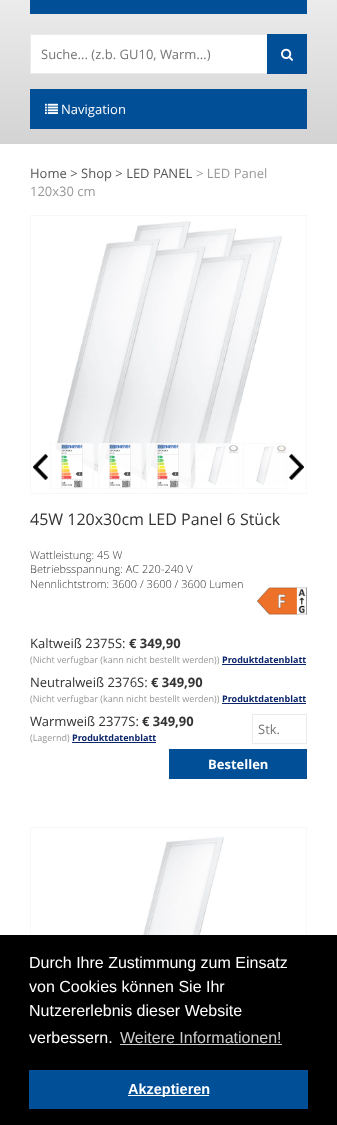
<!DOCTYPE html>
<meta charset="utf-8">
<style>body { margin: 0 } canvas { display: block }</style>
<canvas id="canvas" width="337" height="1125"></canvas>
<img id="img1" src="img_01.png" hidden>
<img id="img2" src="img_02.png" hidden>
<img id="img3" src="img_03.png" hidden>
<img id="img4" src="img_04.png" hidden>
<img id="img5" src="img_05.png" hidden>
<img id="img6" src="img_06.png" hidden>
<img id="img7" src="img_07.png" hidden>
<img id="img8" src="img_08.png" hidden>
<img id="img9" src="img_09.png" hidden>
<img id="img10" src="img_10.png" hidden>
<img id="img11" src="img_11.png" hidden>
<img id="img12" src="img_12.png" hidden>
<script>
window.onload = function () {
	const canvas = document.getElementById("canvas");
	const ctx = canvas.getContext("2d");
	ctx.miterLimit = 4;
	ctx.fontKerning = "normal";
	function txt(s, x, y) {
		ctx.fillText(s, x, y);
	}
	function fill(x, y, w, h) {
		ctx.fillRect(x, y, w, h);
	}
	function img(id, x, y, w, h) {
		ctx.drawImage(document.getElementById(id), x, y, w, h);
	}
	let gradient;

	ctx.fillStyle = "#FFFFFF";
	fill(0, 0, 337, 1125);
	gradient = ctx.createLinearGradient(168, -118, 169, 144);
	gradient.addColorStop(0, "#FFFFFF");
	gradient.addColorStop(1, "#D3D3D3");
	ctx.fillStyle = gradient;
	fill(0, 0, 337, 144);
	ctx.fillStyle = "#004F97";
	fill(30, 0, 277, 14);
	ctx.fillStyle = "#FFFFFF";
	fill(31, 35, 236, 38);
	ctx.strokeStyle = "#EBEBEB";
	ctx.strokeRect(30.5, 34.5, 276, 39);
	ctx.fillStyle = "#004F97";
	fill(267, 34, 40, 40);
	img("img1", 281, 48, 12, 13);
	fill(30, 89, 277, 40);
	img("img2", 45, 103, 13, 11);
	ctx.strokeStyle = "#F8F8F8";
	ctx.strokeRect(30.5, 215.5, 276, 278);
	img("img3", 55, 221, 227, 268);
	img("img4", 33, 454, 15, 26);
	ctx.fillStyle = "rgba(255, 255, 255, 0.75)";
	fill(55, 443, 39, 27);
	ctx.strokeStyle = "rgba(248, 248, 248, 0.75)";
	ctx.strokeRect(50.5, 443.5, 43, 45);
	img("img5", 61, 444, 22, 44);
	fill(98, 443, 44, 36);
	ctx.strokeRect(98.5, 443.5, 43, 45);
	img("img6", 109, 444, 22, 44);
	fill(146, 443, 45, 46);
	ctx.strokeRect(146.5, 443.5, 44, 45);
	img("img7", 157, 444, 22, 44);
	fill(195, 443, 36, 37);
	ctx.strokeRect(195.5, 443.5, 43, 45);
	img("img8", 196, 445, 42, 40);
	ctx.strokeStyle = "#FAFAFA";
	ctx.strokeRect(243.5, 443.5, 43, 45);
	img("img9", 256, 445, 30, 40);
	img("img10", 289, 454, 15, 26);
	img("img11", 257, 587, 50, 28);
	ctx.fillStyle = "#0A246A";
	fill(222, 664, 84, 1);
	fill(222, 703, 84, 1);
	fill(72, 742, 84, 1);
	ctx.strokeStyle = "#EBEBEB";
	ctx.strokeRect(252.5, 714.5, 54, 29);
	ctx.fillStyle = "#004F97";
	fill(169, 749, 138, 30);
	ctx.strokeStyle = "#F8F8F8";
	ctx.strokeRect(30.5, 827.5, 276, 278);
	img("img12", 111, 836, 113, 99);
	ctx.fillStyle = "#000000";
	fill(0, 935, 337, 190);
	ctx.fillStyle = "#CCCCCC";
	fill(120, 1044, 162, 1);
	ctx.fillStyle = "#004F97";
	fill(29, 1070, 279, 39);
	ctx.fillStyle = "#FFFFFF";
	fill(128, 1095, 81, 1);
	ctx.font = "13px Open Sans";
	ctx.fillStyle = "#757575";
	txt("Suche... (z.b. GU10, Warm...)", 41, 59);
	ctx.fillStyle = "#FFFFFF";
	txt("Navigation", 61, 114);
	ctx.fillStyle = "#555555";
	txt("Home > Shop > LED PANEL", 30, 178);
	ctx.fillStyle = "#999999";
	txt("> LED Panel", 196, 178);
	txt("120x30 cm", 30, 196);
	ctx.font = "16px Open Sans";
	ctx.fillStyle = "#333333";
	txt("45W 120x30cm LED Panel 6 Stück", 30, 525);
	ctx.font = "300 11px Open Sans";
	txt("Wattleistung: 45 W", 30, 559);
	txt("Betriebsspannung: AC 220-240 V", 30, 573);
	txt("Nennlichtstrom: 3600 / 3600 / 3600 Lumen", 30, 588);
	ctx.font = "13px Open Sans";
	txt("Kaltweiß 2375S:", 30, 648);
	ctx.font = "bold 13px Open Sans";
	txt("€ 349,90", 129, 648);
	ctx.font = "9px Open Sans";
	ctx.fillStyle = "#999999";
	txt("(Nicht verfugbar (kann nicht bestellt werden))", 30, 663);
	ctx.font = "bold 9px Open Sans";
	ctx.fillStyle = "#0A246A";
	txt("Produktdatenblatt", 222, 663);
	ctx.font = "13px Open Sans";
	ctx.fillStyle = "#333333";
	txt("Neutralweiß 2376S:", 30, 687);
	ctx.font = "bold 13px Open Sans";
	txt("€ 349,90", 151, 687);
	ctx.font = "9px Open Sans";
	ctx.fillStyle = "#999999";
	txt("(Nicht verfugbar (kann nicht bestellt werden))", 30, 702);
	ctx.font = "bold 9px Open Sans";
	ctx.fillStyle = "#0A246A";
	txt("Produktdatenblatt", 222, 702);
	ctx.font = "13px Open Sans";
	ctx.fillStyle = "#333333";
	txt("Warmweiß 2377S:", 30, 726);
	ctx.font = "bold 13px Open Sans";
	txt("€ 349,90", 142, 726);
	ctx.font = "9px Open Sans";
	ctx.fillStyle = "#999999";
	txt("(Lagernd)", 30, 741);
	ctx.font = "bold 9px Open Sans";
	ctx.fillStyle = "#0A246A";
	txt("Produktdatenblatt", 72, 741);
	ctx.font = "13px Open Sans";
	ctx.fillStyle = "#757575";
	txt("Stk.", 258, 734);
	ctx.font = "bold 13px Open Sans";
	ctx.fillStyle = "#FFFFFF";
	txt("Bestellen", 208, 769);
	ctx.font = "16px Liberation Sans";
	txt("Durch Ihre Zustimmung zum Einsatz", 29, 968);
	txt("von Cookies können Sie Ihr", 29, 992);
	txt("Nutzererlebnis dieser Website", 29, 1016);
	txt("verbessern.", 29, 1043);
	ctx.fillStyle = "#CCCCCC";
	txt("Weitere Informationen!", 120, 1043);
	ctx.font = "bold 14.5px Liberation Sans";
	ctx.fillStyle = "#FFFFFF";
	txt("Akzeptieren", 128, 1094);
};
</script>
